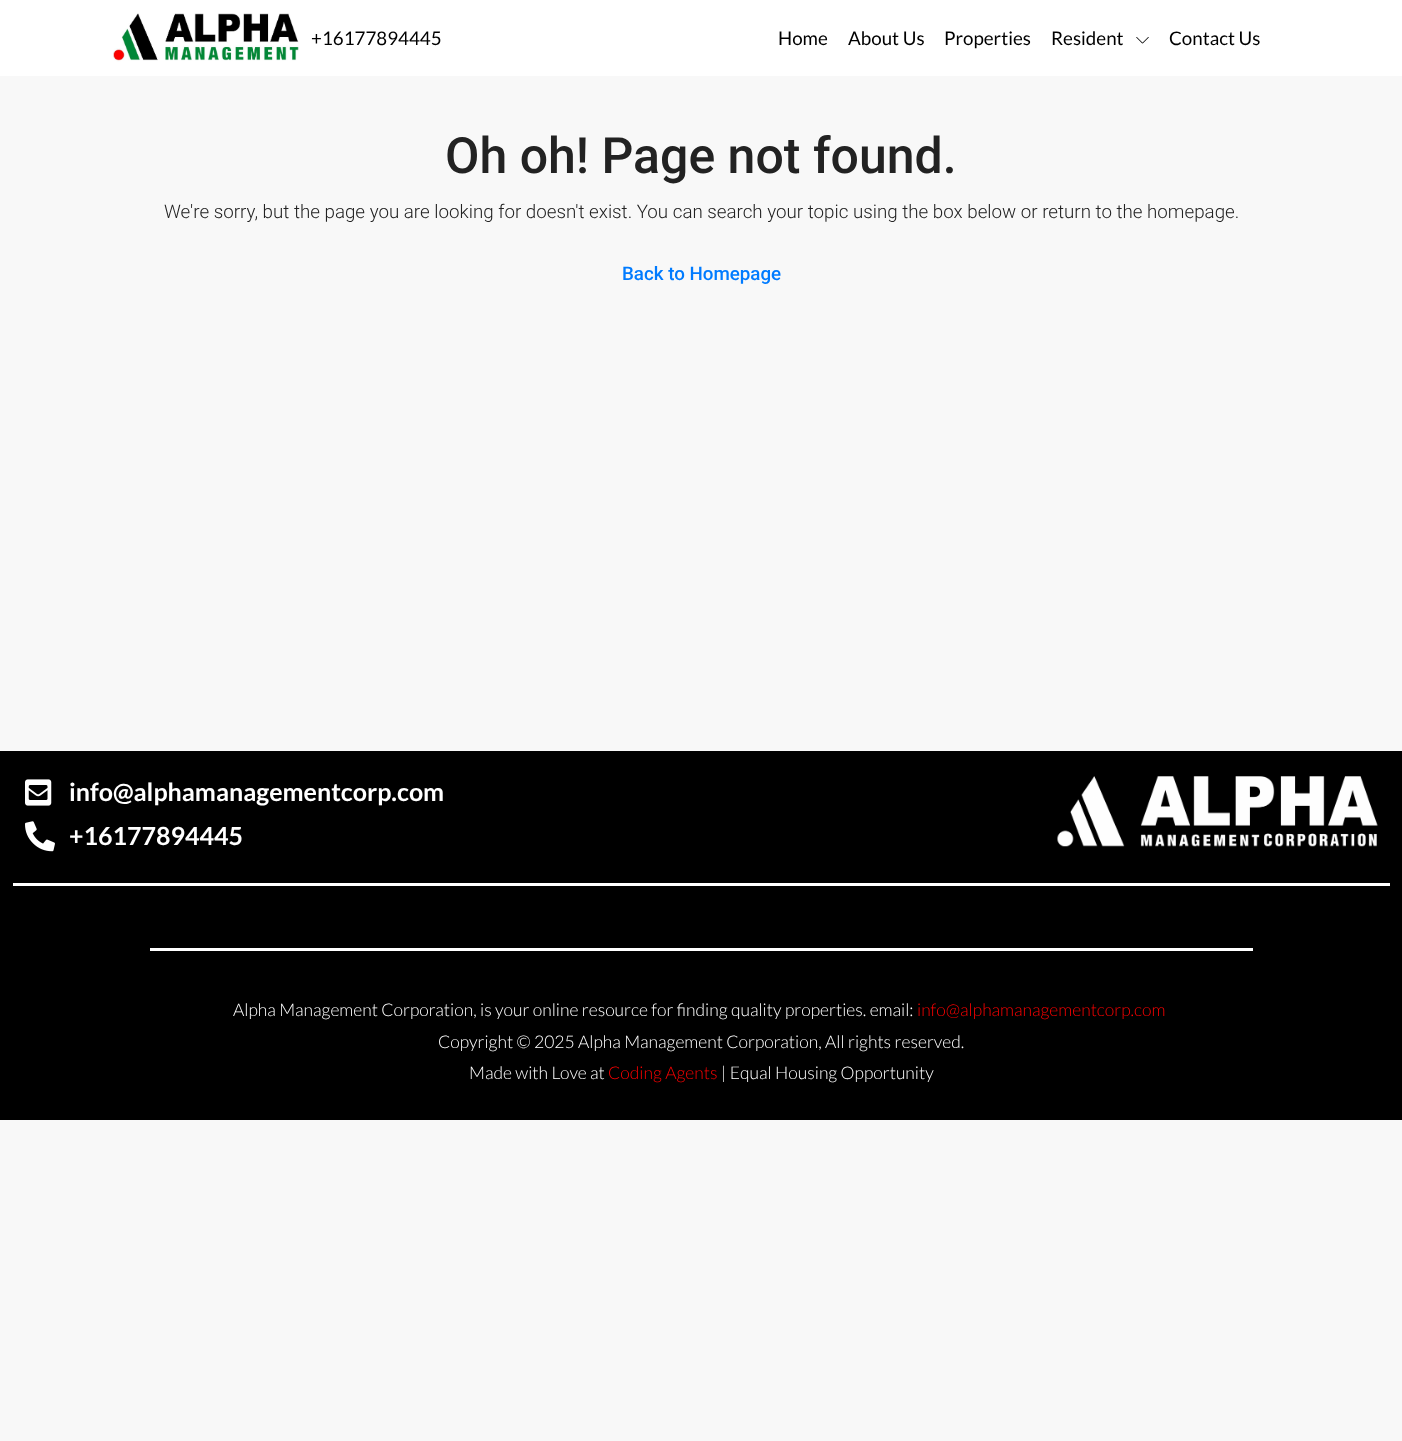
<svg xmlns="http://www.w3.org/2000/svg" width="1402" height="1441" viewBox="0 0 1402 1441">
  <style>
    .t1 { font: 18.75px Lato; fill: #000; }
    .t2 { font: 500 50px Roboto; fill: #222; }
    .t3 { font: 300 18.75px Roboto; fill: #222; }
    .t4 { font: 500 18.75px Roboto; fill: #007bff; }
    .t5 { font: bold 25px Lato; fill: #fff; }
    .t6 { font: 300 17.5px Lato; fill: #fff; }
    .t7 { font: 300 17.5px Lato; fill: #fe0000; }
  </style>
  <rect width="100%" height="100%" fill="#f8f8f8"/>
  <rect x="0" y="0" width="1402" height="76" fill="#fff"/>
  <image x="113" y="13" width="186" height="49" href="images/1.png"/>
  <text x="311" y="45" class="t1">+16177894445</text>
  <text x="778" y="45" class="t1">Home</text>
  <text x="848" y="45" class="t1">About Us</text>
  <text x="944" y="45" class="t1">Properties</text>
  <text x="1051" y="45" class="t1">Resident</text>
  <image x="1136" y="37" width="13" height="7" href="images/2.png"/>
  <text x="1169" y="45" class="t1">Contact Us</text>
  <text x="445" y="173" class="t2">Oh oh! Page not found.</text>
  <text x="164" y="218" class="t3">We're sorry, but the page you are looking for doesn't exist. You can search your topic using the box below or return to the homepage.</text>
  <text x="622" y="280" class="t4">Back to Homepage</text>
  <rect x="0" y="751" width="1402" height="369" fill="#000"/>
  <image x="25" y="779" width="27" height="27" href="images/3.png"/>
  <text x="69" y="801" class="t5">info@alphamanagementcorp.com</text>
  <image x="25" y="821" width="30" height="31" href="images/4.png"/>
  <text x="69" y="845" class="t5">+16177894445</text>
  <image x="1057" y="776" width="321" height="71" href="images/5.png"/>
  <rect x="13" y="883" width="1377" height="3" fill="#fff"/>
  <rect x="150" y="948" width="1103" height="3" fill="#fff"/>
  <text x="233" y="1016" class="t6">Alpha Management Corporation, is your online resource for finding quality properties. email:</text>
  <text x="917" y="1016" class="t7">info@alphamanagementcorp.com</text>
  <text x="438" y="1048" class="t6">Copyright © 2025 Alpha Management Corporation, All rights reserved.</text>
  <text x="469" y="1079" class="t6">Made with Love at</text>
  <text x="608" y="1079" class="t7">Coding Agents</text>
  <text x="721" y="1079" class="t6">| Equal Housing Opportunity</text>
</svg>
